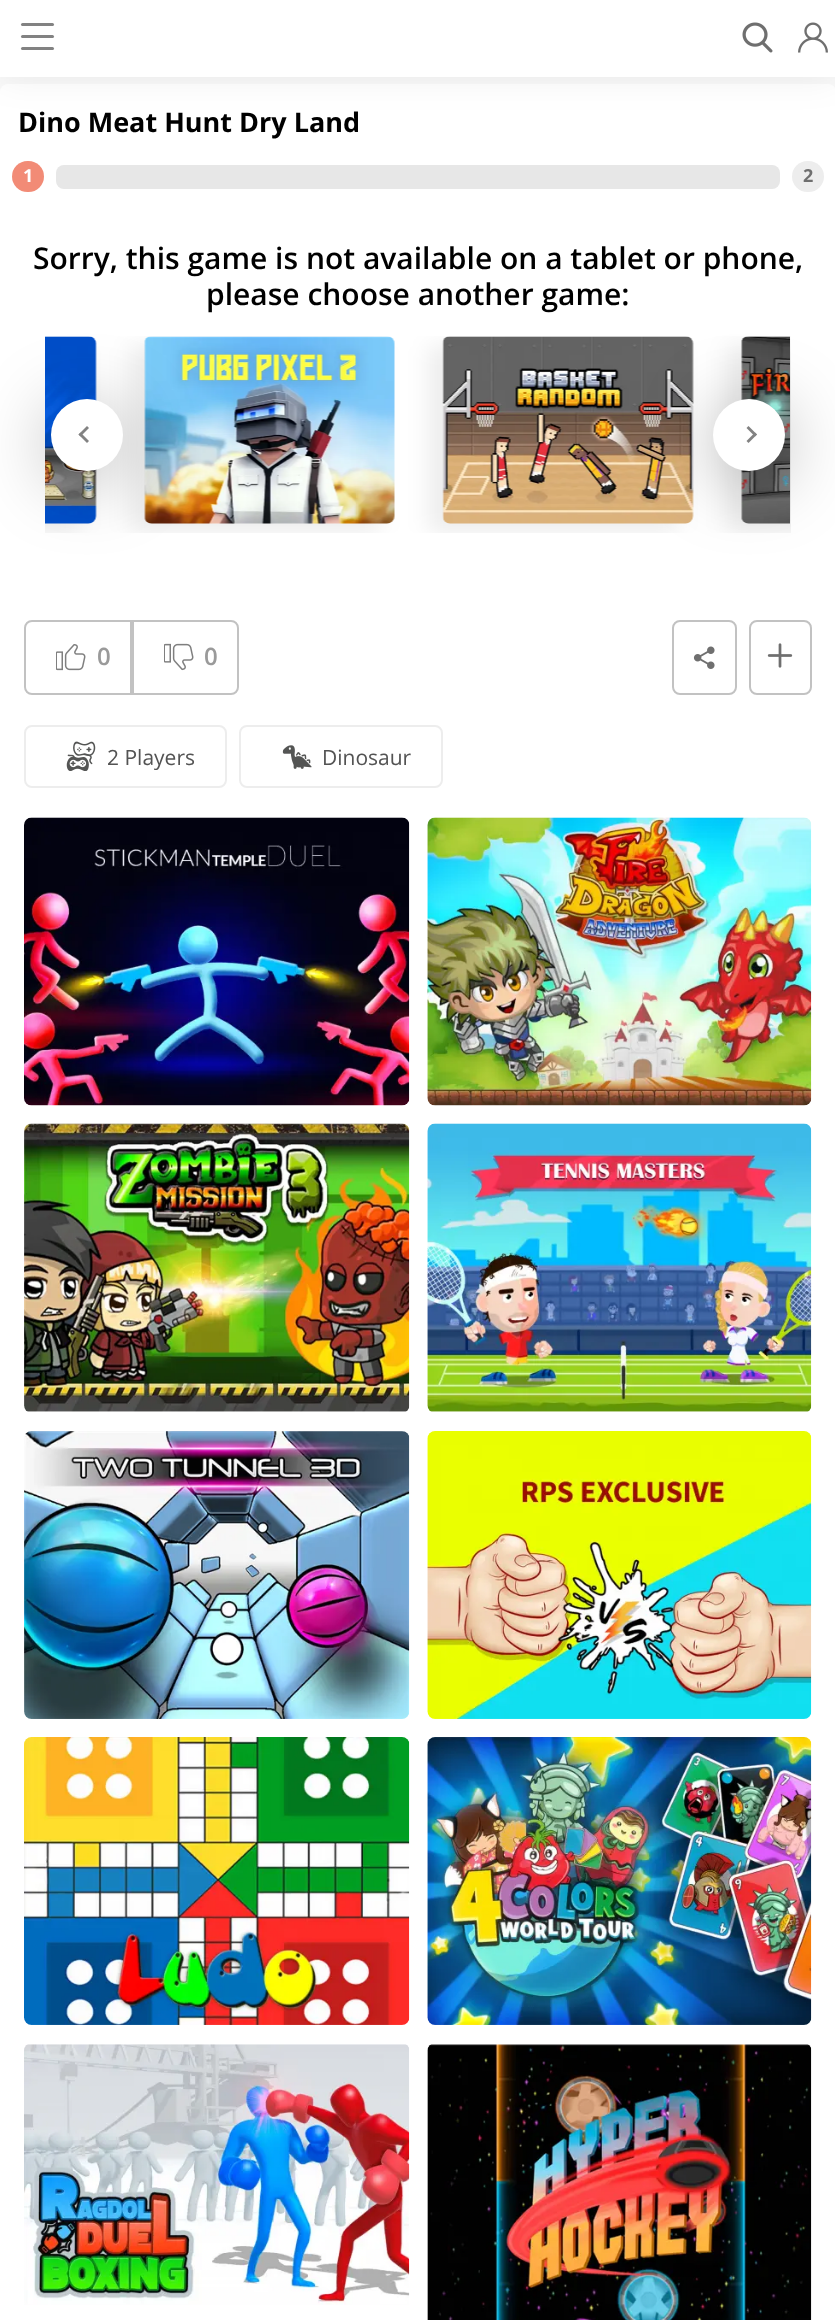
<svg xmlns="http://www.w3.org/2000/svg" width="835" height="2320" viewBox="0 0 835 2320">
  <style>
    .t1 { font: bold 27px Open Sans; fill: #000; }
    .t2 { font: bold 18px Open Sans; fill: #fff; }
    .t3 { font: bold 18px Open Sans; fill: #6f6f6f; }
    .t4 { font: 600 30px Open Sans; fill: #000; }
    .t5 { font: 600 24px Open Sans; fill: #9a9a9a; }
    .t6 { font: 21px Open Sans; fill: #535353; }
  </style>
  <defs>
    <clipPath id="clip1"><rect x="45" y="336" width="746" height="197"/></clipPath>
  </defs>
  <rect width="100%" height="100%" fill="#f9f9f9"/>
  <rect x="0" y="84" width="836" height="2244" rx="8" fill="#fff"/>
  <rect x="0" y="0" width="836" height="77" fill="#00000012" filter="blur(18px)"/>
  <rect x="0" y="0" width="835" height="77" fill="#fff"/>
  <rect x="21" y="35" width="33" height="3" rx="1.5" fill="#828282"/>
  <rect x="21" y="23" width="33" height="3" rx="1.5" fill="#828282"/>
  <rect x="21" y="47" width="33" height="3" rx="1.5" fill="#828282"/>
  <image x="742" y="22" width="31" height="31" href="images/1.png"/>
  <image x="798" y="22" width="30" height="31" href="images/2.png"/>
  <text x="18" y="132" class="t1">Dino Meat Hunt Dry Land</text>
  <rect x="12" y="161" width="32" height="31" rx="15.5" fill="#f28b76"/>
  <text x="23" y="182" class="t2">1</text>
  <rect x="56" y="165" width="724" height="24" rx="8" fill="#e7e7e7"/>
  <rect x="792" y="161" width="32" height="31" rx="15.5" fill="#ededed"/>
  <text x="803" y="182" class="t3">2</text>
  <text x="33" y="269" class="t4">Sorry, this game is not available on a tablet or phone,</text>
  <text x="206" y="305" class="t4">please choose another game:</text>
  <g clip-path="url(#clip1)">
    <rect x="-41" y="345" width="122" height="188" rx="8" fill="#00000012" filter="blur(11px)"/>
  </g>
  <image x="45" y="336" width="52" height="188" href="images/3.png"/>
  <g clip-path="url(#clip1)">
    <rect x="129" y="345" width="251" height="188" rx="8" fill="#00000012" filter="blur(11px)"/>
  </g>
  <image x="144" y="336" width="251" height="188" href="images/4.png"/>
  <rect x="51" y="408" width="72" height="72" rx="36" fill="#00000059" filter="blur(37.5px)"/>
  <circle cx="87" cy="435" r="36" fill="#fff"/>
  <path d="M89 441L87 443L78.5 434.5L80.5 432.5Z" fill="#828282"/>
  <path d="M89 428L80.5 436.5L78.5 434.5L87 426Z" fill="#828282"/>
  <g clip-path="url(#clip1)">
    <rect x="428" y="345" width="250" height="188" rx="8" fill="#00000012" filter="blur(11px)"/>
  </g>
  <image x="442" y="336" width="252" height="188" href="images/5.png"/>
  <g clip-path="url(#clip1)">
    <rect x="726" y="345" width="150" height="188" rx="8" fill="#00000012" filter="blur(11px)"/>
  </g>
  <image x="741" y="336" width="49" height="188" href="images/6.png"/>
  <rect x="713" y="408" width="72" height="72" rx="36" fill="#00000059" filter="blur(37.5px)"/>
  <circle cx="749" cy="435" r="36" fill="#fff"/>
  <path d="M746.5 428L748.5 426L757 434.5L755 436.5Z" fill="#828282"/>
  <path d="M746.5 441L755 432.5L757 434.5L748.5 443Z" fill="#828282"/>
  <path d="M32 621H131V694H32C28 694 25 691 25 687V628C25 624 28 621 32 621Z" fill="none" stroke="#c2c2c2" stroke-width="2"/>
  <image x="56" y="644" width="30" height="27" href="images/7.png"/>
  <text x="97" y="665" class="t5">0</text>
  <path d="M133 621H231C235 621 238 624 238 628V687C238 691 235 694 231 694H133Z" fill="none" stroke="#c2c2c2" stroke-width="2"/>
  <image x="164" y="643" width="30" height="28" href="images/8.png"/>
  <text x="204" y="665" class="t5">0</text>
  <rect x="673" y="621" width="63" height="73" rx="7" fill="none" stroke="#c2c2c2" stroke-width="2"/>
  <image x="693" y="646" width="22" height="23" href="images/9.png"/>
  <rect x="750" y="621" width="61" height="73" rx="7" fill="none" stroke="#c2c2c2" stroke-width="2"/>
  <image x="767" y="643" width="26" height="25" href="images/10.png"/>
  <rect x="25" y="726" width="201" height="61" rx="7" fill="none" stroke="#ededed" stroke-width="2"/>
  <image x="66" y="741" width="30" height="30" href="images/11.png"/>
  <text x="107" y="765" class="t6">2 Players</text>
  <rect x="240" y="726" width="202" height="61" rx="7" fill="none" stroke="#ededed" stroke-width="2"/>
  <image x="282" y="745" width="30" height="24" href="images/12.png"/>
  <text x="322" y="765" class="t6">Dinosaur</text>
  <image x="24" y="817" width="386" height="289" href="images/13.png"/>
  <image x="427" y="817" width="385" height="289" href="images/14.png"/>
  <image x="24" y="1123" width="386" height="289" href="images/15.png"/>
  <image x="427" y="1123" width="385" height="289" href="images/16.png"/>
  <image x="24" y="1431" width="386" height="288" href="images/17.png"/>
  <image x="427" y="1431" width="385" height="288" href="images/18.png"/>
  <image x="24" y="1737" width="386" height="288" href="images/19.png"/>
  <image x="427" y="1737" width="385" height="288" href="images/20.png"/>
  <image x="24" y="2044" width="386" height="261" href="images/21.png"/>
  <image x="427" y="2044" width="385" height="276" href="images/22.png"/>
</svg>
